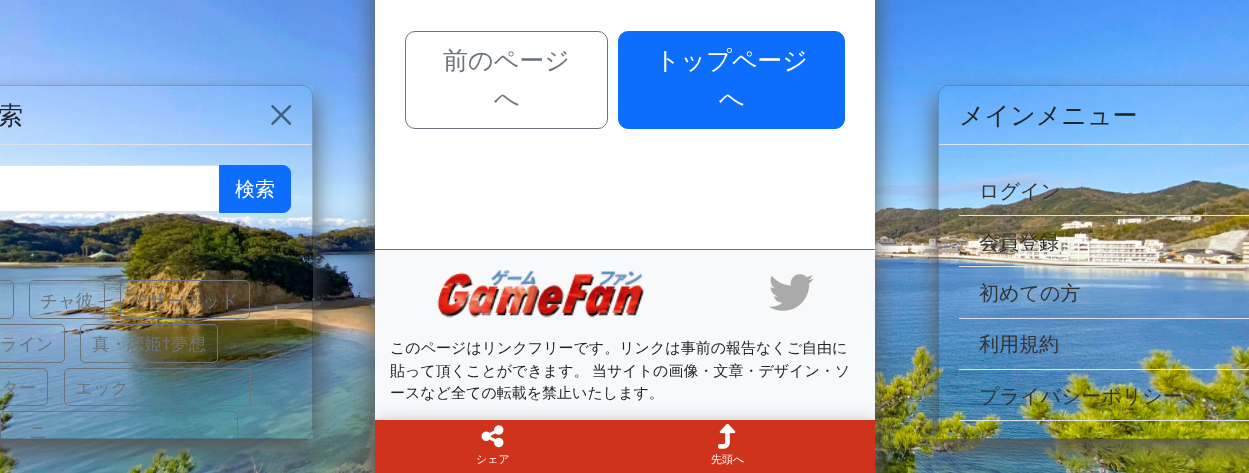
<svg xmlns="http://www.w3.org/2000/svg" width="1249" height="473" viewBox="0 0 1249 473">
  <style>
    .t1 { font: 500 25px WenQuanYi Zen Hei; fill: #6c757d; }
    .t2 { font: 500 25px WenQuanYi Zen Hei; fill: #fff; }
    .t3 { font: 500 25px WenQuanYi Zen Hei; fill: #212529; }
    .t4 { font: 500 20px WenQuanYi Zen Hei; fill: #fff; }
    .t5 { font: 500 17.5px WenQuanYi Zen Hei; fill: #6c757d; }
    .t6 { font: 17.5px Noto Sans; fill: #6c757d; }
    .t7 { font: 500 15px WenQuanYi Zen Hei; fill: #212529; }
    .t8 { font: 500 20px WenQuanYi Zen Hei; fill: #333; }
    .t9 { font: 500 11px WenQuanYi Zen Hei; fill: #fff; }
  </style>
  <defs>
    <clipPath id="clip1"><path d="M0 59H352V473H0ZM-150 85H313V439H-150Z" clip-rule="evenodd"/></clipPath>
    <clipPath id="clip2"><path d="M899 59H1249V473H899ZM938 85H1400V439H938Z" clip-rule="evenodd"/></clipPath>
  </defs>
  <rect width="100%" height="100%" fill="#fff"/>
  <image x="0" y="0" width="1249" height="473" href="images/1.png"/>
  <rect x="375" y="-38" width="500" height="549" fill="#555" filter="blur(12.5px)"/>
  <rect x="375" y="0" width="500" height="249" fill="#fff"/>
  <rect x="405.5" y="31.5" width="202" height="97" rx="9.5" fill="none" stroke="#6c757d"/>
  <text x="443" y="69" class="t1">前のページ</text>
  <text x="494" y="107" class="t1">へ</text>
  <rect x="618.5" y="31.5" width="226" height="97" rx="9.5" fill="#0d6efd" stroke="#0d6efd"/>
  <text x="655" y="69" class="t2">トップページ</text>
  <text x="719" y="107" class="t2">へ</text>
  <g clip-path="url(#clip1)">
    <rect x="-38" y="98" width="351" height="353" fill="#555" filter="blur(12.5px)"/>
  </g>
  <rect x="-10.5" y="85.5" width="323" height="353" rx="9.5" fill="none" stroke="#0000002e"/>
  <rect x="0" y="144" width="311" height="1" fill="#dee2e6"/>
  <text x="-2" y="124" class="t3">索</text>
  <image x="271" y="105" width="20" height="20" href="images/2.png"/>
  <rect x="0" y="166" width="219" height="45" fill="#fff"/>
  <rect x="-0.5" y="165.5" width="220" height="47" fill="none" stroke="#dee2e6"/>
  <path d="M219.5 165.5H283C287 165.5 290.5 169 290.5 173V205C290.5 209 287 212.5 283 212.5H219.5Z" fill="#0d6efd" stroke="#0d6efd"/>
  <text x="235" y="196" class="t4">検索</text>
  <rect x="-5.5" y="280.5" width="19" height="38" rx="4.5" fill="none" stroke="#6c757d"/>
  <rect x="29.5" y="280.5" width="75" height="38" rx="4.5" fill="none" stroke="#6c757d"/>
  <text x="40" y="307" class="t5">チャ彼</text>
  <rect x="120.5" y="280.5" width="129" height="38" rx="4.5" fill="none" stroke="#6c757d"/>
  <text x="131" y="307" class="t5">デザーテッド</text>
  <rect x="-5.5" y="324.5" width="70" height="38" rx="4.5" fill="none" stroke="#6c757d"/>
  <text x="0" y="350" class="t5">ライン</text>
  <rect x="80.5" y="324.5" width="137" height="38" rx="4.5" fill="none" stroke="#6c757d"/>
  <text x="92" y="350" class="t5">真・恋姫</text>
  <text x="162" y="350" class="t6">†</text>
  <text x="171" y="350" class="t5">夢想</text>
  <rect x="-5.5" y="368.5" width="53" height="37" rx="4.5" fill="none" stroke="#6c757d"/>
  <text x="1" y="394" class="t5">ター</text>
  <rect x="64.5" y="368.5" width="186" height="37" rx="4.5" fill="none" stroke="#6c757d"/>
  <text x="75" y="394" word-spacing="-1" class="t5">エック</text>
  <path d="M5 411C2 411 0 413 0 416V438H1V416C1 414 3 412 5 412H233C235 412 237 414 237 416V438H238V416C238 413 236 411 233 411Z" fill="#6c757d"/>
  <text x="29" y="438" class="t5">ニ</text>
  <rect x="375" y="250" width="500" height="169" fill="#f8f9fa"/>
  <rect x="375" y="249" width="500" height="1" fill="#6c757d"/>
  <image x="437" y="270" width="208" height="48" href="images/3.png"/>
  <image x="769" y="274" width="45" height="37" href="images/4.png"/>
  <text x="390" y="353" class="t7">このページはリンクフリーです。リンクは事前の報告なくご自由に</text>
  <text x="390" y="376" class="t7">貼って頂くことができます。</text>
  <text x="592" y="376" class="t7">当サイトの画像・文章・デザイン・ソ</text>
  <text x="390" y="398" class="t7">ースなど全ての転載を禁止いたします。</text>
  <g clip-path="url(#clip2)">
    <rect x="938" y="98" width="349" height="353" fill="#555" filter="blur(12.5px)"/>
  </g>
  <rect x="938.5" y="85.5" width="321" height="353" rx="9.5" fill="none" stroke="#0000002e"/>
  <rect x="939" y="144" width="310" height="1" fill="#dee2e6"/>
  <text x="959" y="124" class="t3">メインメニュー</text>
  <rect x="959" y="215" width="290" height="1" fill="#dee2e6"/>
  <text x="979" y="198" class="t8">ログイン</text>
  <rect x="959" y="266" width="290" height="1" fill="#dee2e6"/>
  <text x="979" y="249" class="t8">会員登録</text>
  <rect x="959" y="318" width="290" height="1" fill="#dee2e6"/>
  <text x="979" y="300" class="t8">初めての方</text>
  <rect x="959" y="369" width="290" height="1" fill="#dee2e6"/>
  <text x="979" y="351" class="t8">利用規約</text>
  <rect x="959" y="420" width="290" height="1" fill="#dee2e6"/>
  <text x="979" y="403" class="t8">プライバシーポリシー</text>
  <rect x="375" y="431" width="500" height="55" fill="#555" filter="blur(12.5px)"/>
  <rect x="375" y="420" width="500" height="53" fill="#d0331c"/>
  <rect x="375" y="419" width="500" height="1" fill="#dee2e6"/>
  <image x="481" y="425" width="23" height="23" href="images/5.png"/>
  <text x="476" y="463" class="t9">シェア</text>
  <image x="718" y="424" width="18" height="25" href="images/6.png"/>
  <text x="711" y="463" class="t9">先頭へ</text>
</svg>
